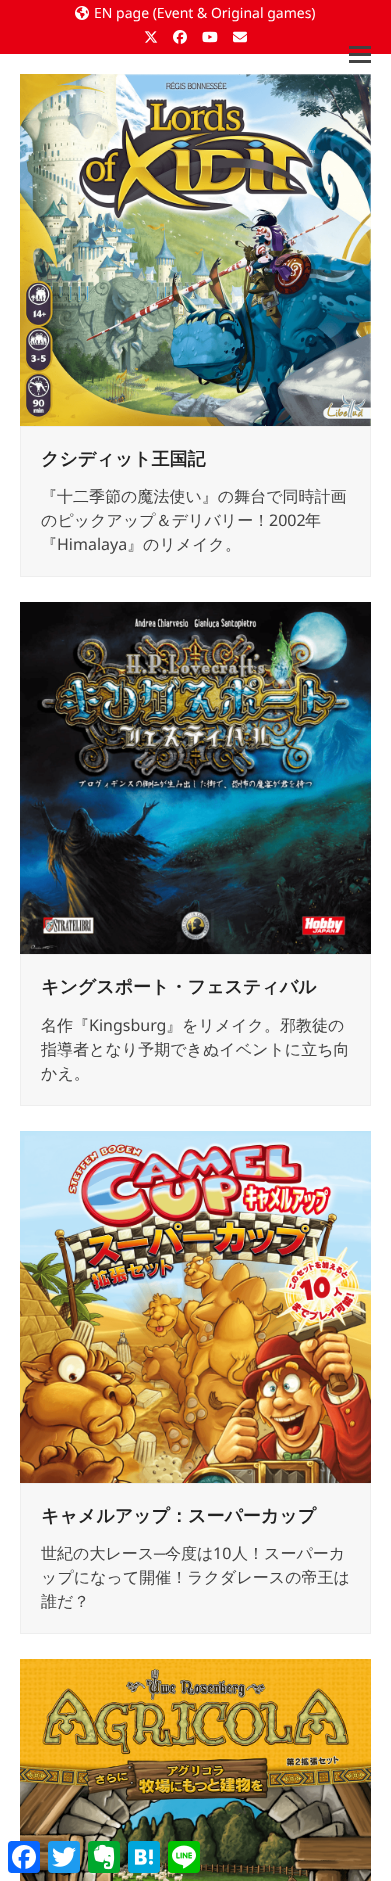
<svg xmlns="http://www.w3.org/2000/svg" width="391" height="1881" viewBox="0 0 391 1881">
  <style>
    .t1 { font: 14px Noto Sans; fill: #fff; }
    .t2 { font: bold 18px WenQuanYi Zen Hei; fill: #222; }
    .t3 { font: 500 16px WenQuanYi Zen Hei; fill: #424242; }
    .t4 { font: 16px Noto Sans; fill: #424242; }
    .t5 { font: 16px Liberation Sans; fill: #424242; }
  </style>
  <rect width="100%" height="100%" fill="#fff"/>
  <rect x="0" y="0" width="391" height="54" fill="#e60012"/>
  <image x="75" y="6" width="14" height="14" href="images/1.png"/>
  <text x="94" y="18" class="t1">EN page (Event &amp; Original games)</text>
  <image x="144" y="31" width="14" height="12" href="images/2.png"/>
  <image x="173" y="30" width="14" height="14" href="images/3.png"/>
  <image x="202" y="31" width="16" height="12" href="images/4.png"/>
  <image x="233" y="31" width="14" height="12" href="images/5.png"/>
  <rect x="349" y="53" width="22" height="3" fill="#424242"/>
  <rect x="349" y="46" width="22" height="3" fill="#424242"/>
  <rect x="349" y="60" width="22" height="3" fill="#424242"/>
  <image x="20" y="74" width="351" height="352" href="images/6.png"/>
  <rect x="20.5" y="426.5" width="350" height="150" fill="#f7f7f7" stroke="#eee"/>
  <text x="41" y="465" class="t2">クシディット王国記</text>
  <text x="41" y="502" class="t3">『十二季節の魔法使い』の舞台で同時計画</text>
  <text x="41" y="526" class="t3">のピックアップ＆デリバリー！</text>
  <text x="269" y="526" class="t4">2002</text>
  <text x="305" y="526" class="t3">年</text>
  <text x="41" y="550" class="t3">『</text>
  <text x="57" y="550" class="t4">Himalaya</text>
  <text x="127" y="550" class="t3">』のリメイク。</text>
  <image x="20" y="602" width="351" height="352" href="images/7.png"/>
  <rect x="20.5" y="954.5" width="350" height="151" fill="#f7f7f7" stroke="#eee"/>
  <text x="41" y="993" class="t2">キングスポート・フェスティバル</text>
  <text x="41" y="1031" class="t3">名作『</text>
  <text x="89" y="1031" class="t4">Kingsburg</text>
  <text x="166" y="1031" class="t3">』をリメイク。邪教徒の</text>
  <text x="41" y="1055" class="t3">指導者となり予期できぬイベントに立ち向</text>
  <text x="41" y="1079" class="t3">かえ。</text>
  <image x="20" y="1131" width="351" height="352" href="images/8.png"/>
  <rect x="20.5" y="1483.5" width="350" height="150" fill="#f7f7f7" stroke="#eee"/>
  <text x="41" y="1522" class="t2">キャメルアップ：スーパーカップ</text>
  <text x="41" y="1559" class="t3">世紀の大レース</text>
  <text x="154" y="1559" class="t5">─</text>
  <text x="165" y="1559" class="t3">今度は</text>
  <text x="213" y="1559" class="t4">10</text>
  <text x="232" y="1559" class="t3">人！スーパーカ</text>
  <text x="41" y="1583" class="t3">ップになって開催！ラクダレースの帝王は</text>
  <text x="41" y="1607" class="t3">誰だ？</text>
  <image x="20" y="1659" width="351" height="222" href="images/9.png"/>
  <rect x="8" y="1841" width="32" height="32" rx="4" fill="#0866ff"/>
  <image x="12" y="1845" width="24" height="24" href="images/10.png"/>
  <rect x="48" y="1841" width="32" height="32" rx="4" fill="#1d9bf0"/>
  <image x="52" y="1847" width="24" height="20" href="images/11.png"/>
  <rect x="88" y="1841" width="32" height="32" rx="4" fill="#00a82d"/>
  <image x="93" y="1844" width="22" height="26" href="images/12.png"/>
  <rect x="128" y="1841" width="32" height="32" rx="4" fill="#00a6db"/>
  <image x="134" y="1849" width="19" height="16" href="images/13.png"/>
  <rect x="168" y="1841" width="32" height="32" rx="4" fill="#00c300"/>
  <image x="172" y="1845" width="24" height="24" href="images/14.png"/>
</svg>
